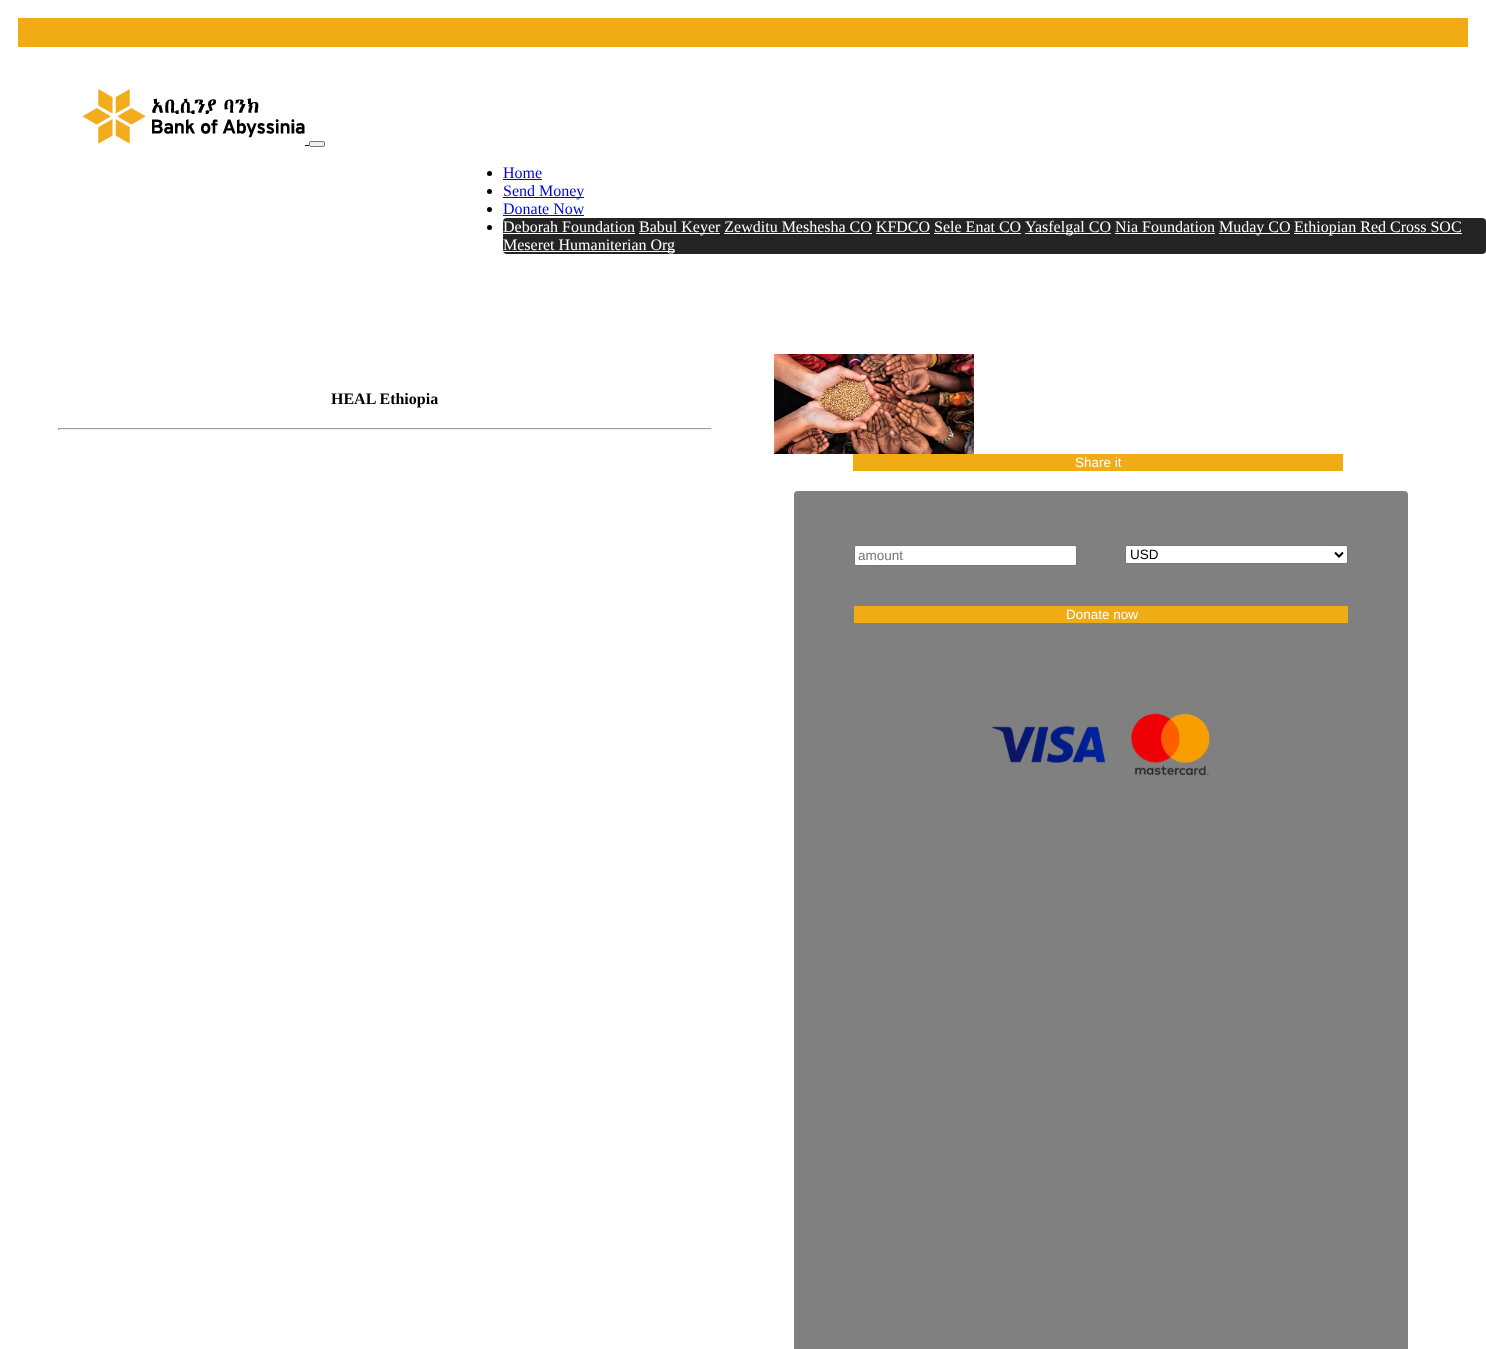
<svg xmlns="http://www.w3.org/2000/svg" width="1486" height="1349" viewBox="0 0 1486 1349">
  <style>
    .t1 { font: 16px Liberation Serif; fill: #00e; }
    .t2 { font: 16px Liberation Serif; fill: #fff; }
    .t3 { font: bold 16px Liberation Serif; fill: #000; }
    .t4 { font: 13.5px Liberation Sans; fill: #fff; }
    .t5 { font: 13.5px Liberation Sans; fill: #757575; }
    .t6 { font: 13.5px Liberation Sans; fill: #000; }
  </style>
  <rect width="100%" height="100%" fill="#fff"/>
  <rect x="18" y="18" width="1450" height="29" fill="#f1ab15"/>
  <image x="82" y="89" width="223" height="55" href="images/1.png"/>
  <rect x="305" y="145" width="4" height="1" fill="#00e"/>
  <rect x="309.5" y="141.5" width="15" height="5" rx="1.5" fill="#efefef" stroke="#767676"/>
  <circle cx="489.5" cy="173.5" r="2.5" fill="#000"/>
  <text x="503" y="178" class="t1">Home</text>
  <rect x="503" y="179" width="39" height="1" fill="#00e"/>
  <circle cx="489.5" cy="191.5" r="2.5" fill="#000"/>
  <rect x="503" y="197" width="81" height="1" fill="#00e"/>
  <text x="503" y="196" class="t1">Send Money</text>
  <circle cx="489.5" cy="227.5" r="2.5" fill="#000"/>
  <circle cx="489.5" cy="209.5" r="2.5" fill="#000"/>
  <text x="503" y="214" class="t1">Donate Now</text>
  <rect x="503" y="215" width="81" height="1" fill="#00e"/>
  <rect x="503" y="218" width="983" height="36" rx="4" fill="#252424"/>
  <text x="503" y="232" class="t2">Deborah Foundation</text>
  <rect x="503" y="233" width="132" height="1" fill="#fff"/>
  <rect x="639" y="233" width="81" height="1" fill="#fff"/>
  <text x="639" y="232" class="t2">Babul Keyer Zewditu Meshesha CO KFDCO Sele Enat CO</text>
  <rect x="1025" y="233" width="86" height="1" fill="#fff"/>
  <text x="1025" y="232" class="t2">Yasfelgal CO Nia Foundation</text>
  <rect x="1219" y="233" width="71" height="1" fill="#fff"/>
  <text x="1219" y="232" class="t2">Muday CO</text>
  <rect x="1294" y="233" width="168" height="1" fill="#fff"/>
  <text x="1294" y="232" class="t2">Ethiopian Red Cross SOC</text>
  <rect x="724" y="233" width="148" height="1" fill="#fff"/>
  <rect x="876" y="233" width="54" height="1" fill="#fff"/>
  <rect x="934" y="233" width="87" height="1" fill="#fff"/>
  <rect x="1115" y="233" width="100" height="1" fill="#fff"/>
  <rect x="503" y="251" width="172" height="1" fill="#fff"/>
  <text x="503" y="250" class="t2">Meseret Humaniterian Org</text>
  <text x="331" y="404" class="t3">HEAL Ethiopia</text>
  <rect x="58" y="428" width="654" height="1" fill="#9f9f9f"/>
  <rect x="711" y="428" width="1" height="2" fill="#eee"/>
  <rect x="58" y="429" width="654" height="1" fill="#eee"/>
  <rect x="58" y="428" width="1" height="2" fill="#9f9f9f"/>
  <image x="774" y="354" width="200" height="100" href="images/2.png"/>
  <rect x="853" y="454" width="490" height="17" fill="#f1ab15"/>
  <text x="1075" y="467" class="t4">Share it</text>
  <rect x="794" y="491" width="614" height="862" rx="4" fill="#808080"/>
  <rect x="854.5" y="545.5" width="222" height="20" rx="1.5" fill="#fff" stroke="#767676"/>
  <text x="858" y="560" class="t5">amount</text>
  <rect x="1125.5" y="545.5" width="222" height="18" rx="1.5" fill="#fff" stroke="#767676"/>
  <path d="M1335 552.5L1339 556.5L1343 552.5" fill="none" stroke="#000" stroke-width="2"/>
  <text x="1130" y="559" class="t6">USD</text>
  <rect x="854" y="606" width="494" height="17" fill="#f1ab15"/>
  <text x="1066" y="619" class="t4">Donate now</text>
  <image x="992" y="713" width="218" height="63" href="images/3.png"/>
</svg>
